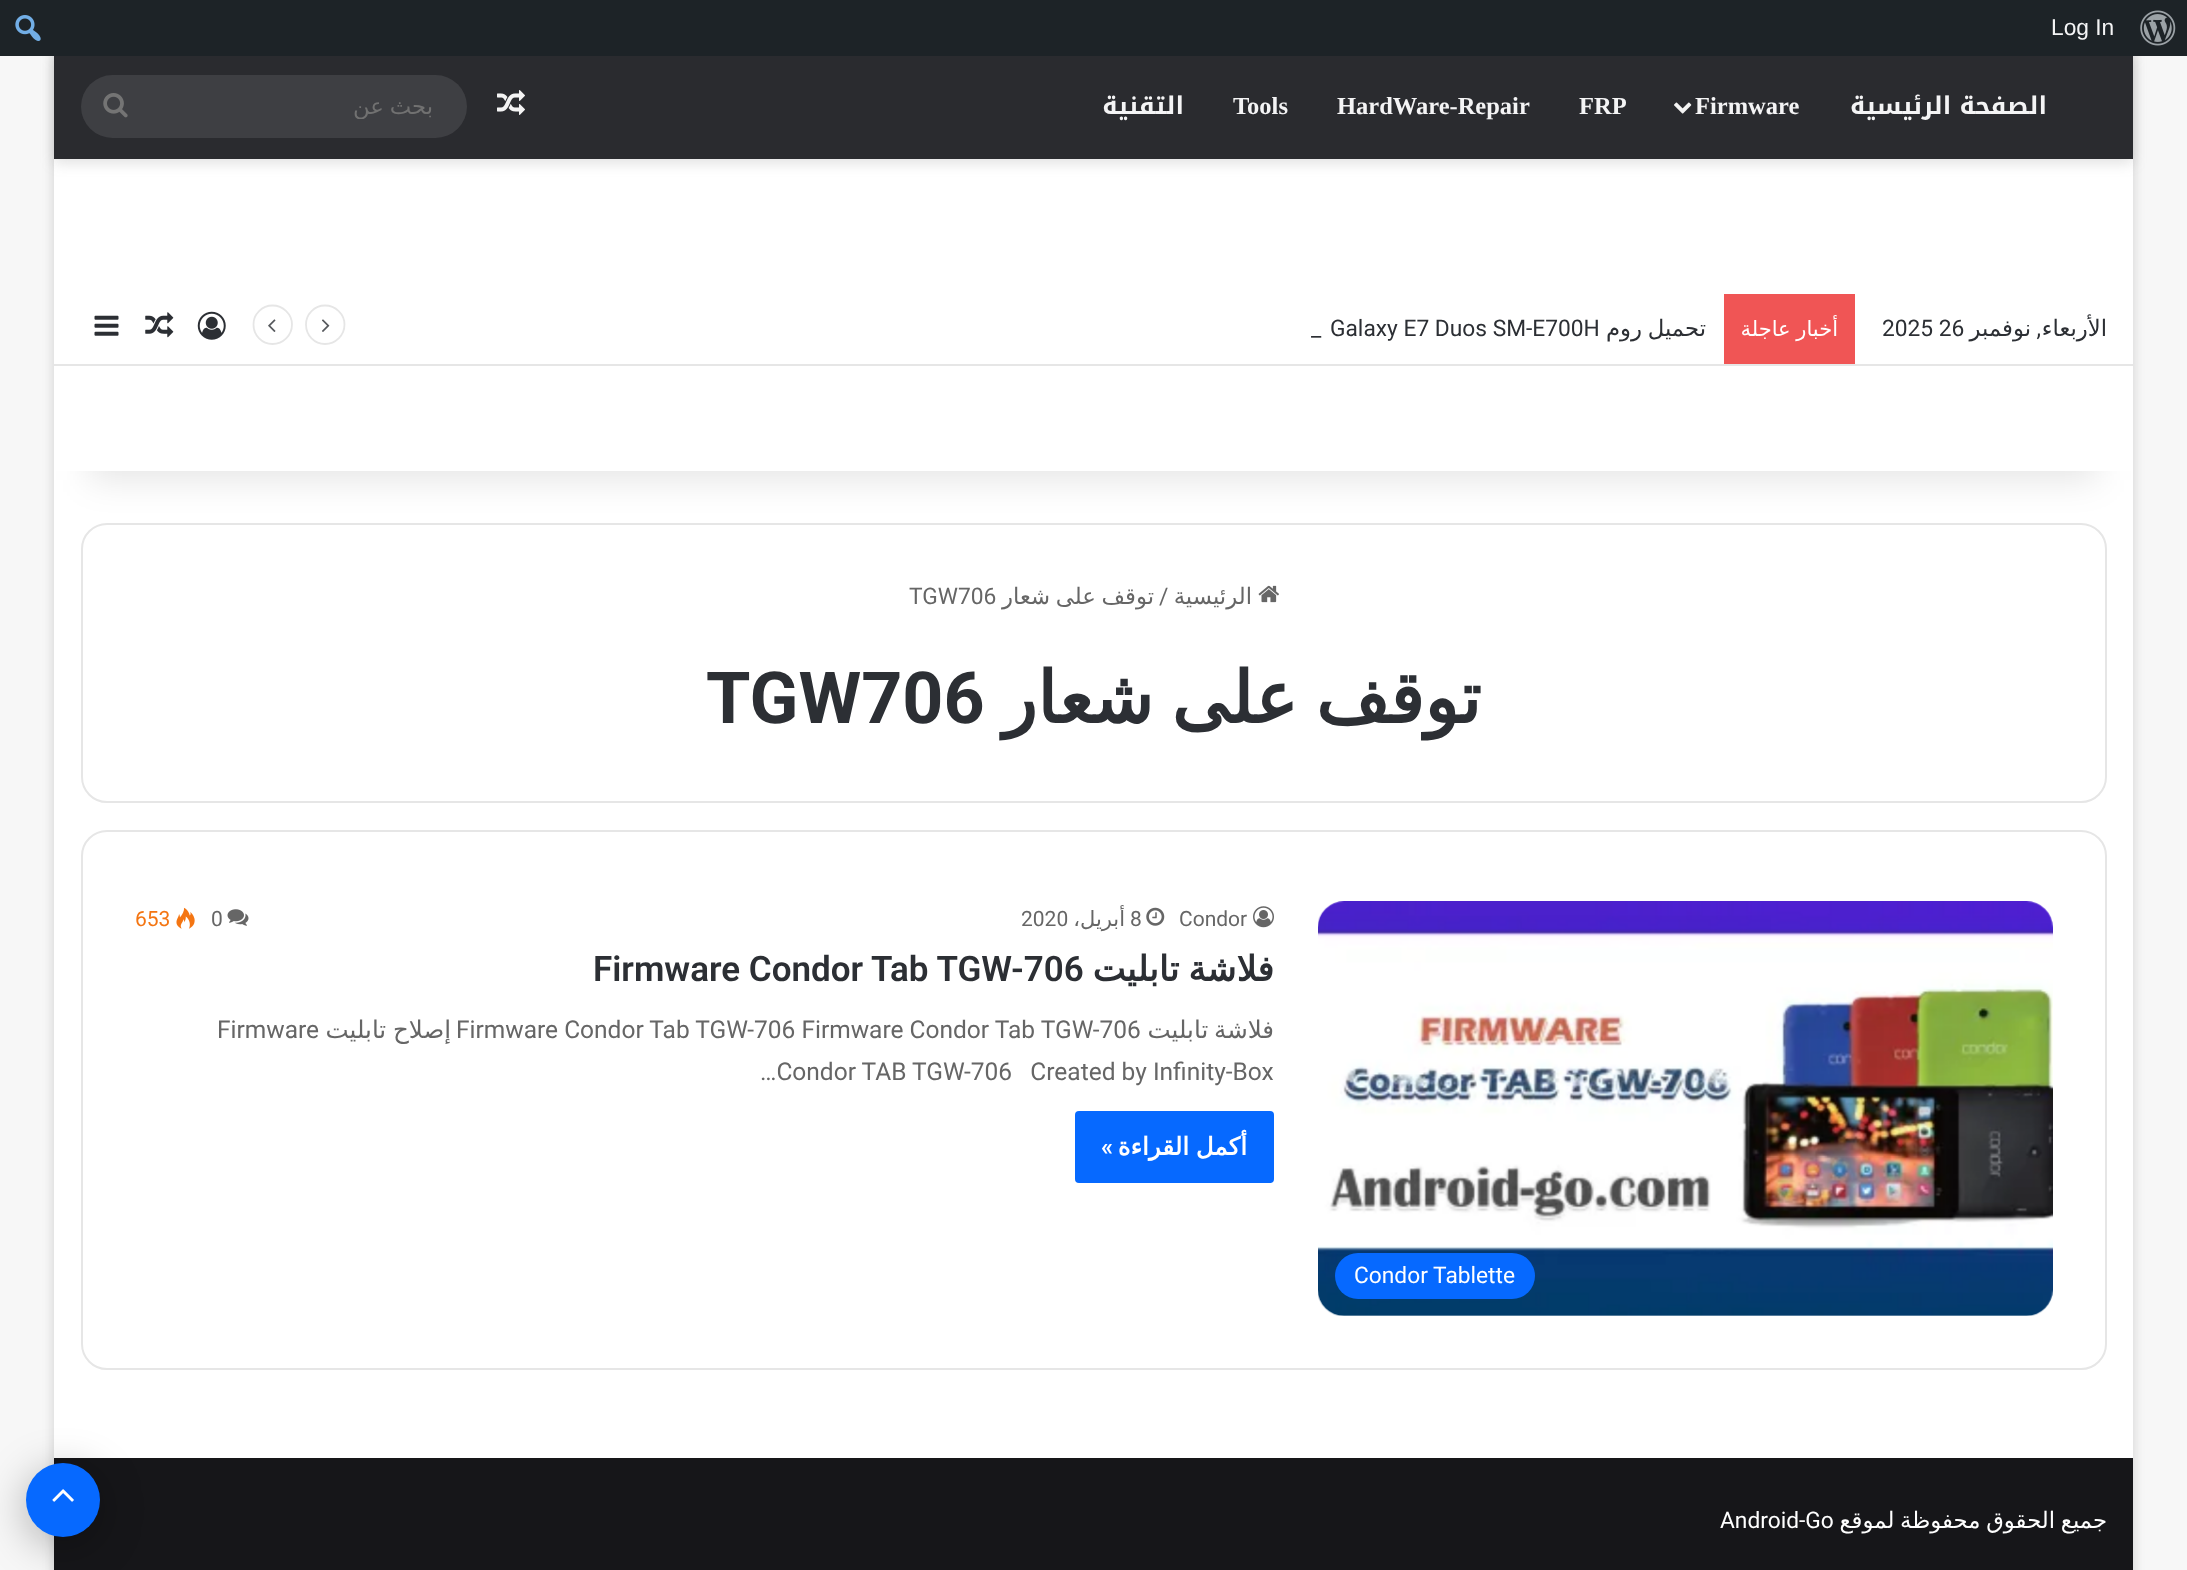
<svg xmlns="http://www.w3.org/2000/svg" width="2187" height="1570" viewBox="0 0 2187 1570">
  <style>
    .t1 { font: 22.75px Liberation Sans; fill: #f4f4f5; }
    .t2 { font: 22.75px DejaVu Sans; direction: rtl; fill: #717171; }
    .t3 { font: bold 24.5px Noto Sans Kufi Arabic; direction: rtl; fill: #f4f4f5; }
    .t4 { font: bold 24.5px Liberation Serif; fill: #f4f4f5; }
    .t5 { font: 22.75px Roboto; fill: #2c2f34; }
    .t6 { font: 22.75px DejaVu Sans; direction: rtl; fill: #2c2f34; }
    .t7 { font: 21px DejaVu Sans; direction: rtl; fill: #fff; }
    .t8 { font: 22.75px Roboto; direction: rtl; fill: #2c2f34; }
    .t9 { font: 22.75px Roboto; fill: #666; }
    .t10 { font: 22.75px DejaVu Sans; direction: rtl; fill: #666; }
    .t11 { font: bold 71.75px Roboto; fill: #2c2f34; }
    .t12 { font: bold 71.75px DejaVu Sans; direction: rtl; fill: #2c2f34; }
    .t13 { font: 21px Roboto; fill: #f47512; }
    .t14 { font: 21px Roboto; fill: #666; }
    .t15 { font: 21px DejaVu Sans; direction: rtl; fill: #666; }
    .t16 { font: 600 35px Roboto; fill: #2c2f34; }
    .t17 { font: bold 35px DejaVu Sans; direction: rtl; fill: #2c2f34; }
    .t18 { font: 24.5px Roboto; fill: #666; }
    .t19 { font: 24.5px DejaVu Sans; direction: rtl; fill: #666; }
    .t20 { font: 600 24.5px Roboto; direction: rtl; fill: #fff; }
    .t21 { font: bold 24.5px DejaVu Sans; direction: rtl; fill: #fff; }
    .t22 { font: 22.75px Roboto; fill: #fff; }
    .t23 { font: 22.75px DejaVu Sans; direction: rtl; fill: #fff; }
  </style>
  <defs>
    <clipPath id="clip1"><path d="M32 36H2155V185H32ZM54 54H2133V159H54Z" clip-rule="evenodd"/></clipPath>
    <clipPath id="clip2"><rect x="142" y="93" width="290" height="26"/></clipPath>
    <clipPath id="clip3"><rect x="1055" y="294" width="651" height="70"/></clipPath>
  </defs>
  <rect width="100%" height="100%" fill="#f7f7f7"/>
  <rect x="54" y="-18" width="2079" height="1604" fill="#ababab80" filter="blur(6px)"/>
  <rect x="54" y="471" width="2079" height="987" fill="#fff"/>
  <rect x="82" y="524" width="2024" height="278" rx="25" fill="none" stroke="#e6e6e6" stroke-width="2"/>
  <rect x="89" y="-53" width="2009" height="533" fill="#0000001a" filter="blur(17.5px)"/>
  <rect x="54" y="56" width="2079" height="415" fill="#fff"/>
  <g clip-path="url(#clip1)">
    <rect x="54" y="58" width="2079" height="105" fill="#63636333" filter="blur(7px)"/>
  </g>
  <rect x="0" y="0" width="2187" height="56" fill="#1d2327"/>
  <image x="15" y="15" width="26" height="26" href="images/1.png"/>
  <text x="2051" y="35" class="t1">Log In</text>
  <image x="2140" y="10" width="36" height="36" href="images/2.png"/>
  <rect x="54" y="56" width="2079" height="103" fill="#1f2024f2"/>
  <rect x="81" y="75" width="386" height="63" rx="31.5" fill="#3e3f43"/>
  <image x="103" y="93" width="25" height="25" href="images/3.png"/>
  <g clip-path="url(#clip2)">
    <text x="433" y="114" word-spacing="-1.5" class="t2">بحث عن</text>
  </g>
  <image x="497" y="90" width="28" height="25" href="images/4.png"/>
  <text x="1184" y="114" class="t3">التقنية</text>
  <text x="1233" y="114" class="t4">Tools</text>
  <text x="1337" y="114" class="t4">HardWare-Repair</text>
  <text x="1579" y="114" class="t4">FRP</text>
  <image x="1674" y="102" width="18" height="12" href="images/5.png"/>
  <text x="1695" y="114" class="t4">Firmware</text>
  <text x="2047" y="114" class="t3">الصفحة الرئيسية</text>
  <rect x="54" y="364" width="2079" height="2" fill="#e6e6e6"/>
  <image x="94" y="315" width="25" height="21" href="images/6.png"/>
  <image x="145" y="312" width="29" height="26" href="images/7.png"/>
  <image x="197" y="311" width="29" height="29" href="images/8.png"/>
  <path d="M272.5 344C262 344 253.5 335.5 253.5 324.5C253.5 314 262 305.5 272.5 305.5C283 305.5 292 314 292 324.5C292 335.5 283 344 272.5 344Z" fill="none" stroke="#e6e6e6" stroke-width="1.8"/>
  <image x="268" y="319" width="8" height="13" href="images/9.png"/>
  <path d="M325 344C314.5 344 306 335.5 306 324.5C306 314 314.5 305.5 325 305.5C335.5 305.5 344.5 314 344.5 324.5C344.5 335.5 335.5 344 325 344Z" fill="none" stroke="#e6e6e6" stroke-width="1.8"/>
  <image x="322" y="319" width="8" height="13" href="images/10.png"/>
  <text x="1311" y="336" class="t5">_</text>
  <text x="1330" y="336" class="t5">Galaxy E7 Duos SM-E700H</text>
  <g clip-path="url(#clip3)">
    <text x="1706" y="336" word-spacing="-1.5" class="t6">تحميل روم</text>
  </g>
  <rect x="1724" y="294" width="131" height="70" fill="#f05555"/>
  <text x="1838" y="336" word-spacing="-1" class="t7">أخبار عاجلة</text>
  <text x="1882" y="336" class="t5">2025 26</text>
  <text x="2031" y="336" class="t6">نوفمبر</text>
  <text x="2041" y="336" class="t8">,</text>
  <text x="2107" y="336" class="t6">الأربعاء</text>
  <text x="909" y="604" class="t9">TGW706</text>
  <text x="1154" y="604" word-spacing="-1.5" class="t10">توقف على شعار</text>
  <text x="1159" y="604" class="t9">/</text>
  <text x="1252" y="604" class="t10">الرئيسية</text>
  <image x="1258" y="585" width="21" height="18" href="images/11.png"/>
  <text x="706" y="723" class="t11">TGW706</text>
  <text x="1481" y="723" word-spacing="-5" class="t12">توقف على شعار</text>
  <rect x="82" y="831" width="2024" height="538" rx="25" fill="none" stroke="#e6e6e6" stroke-width="2"/>
  <text x="135" y="926" class="t13">653</text>
  <image x="176" y="907" width="19" height="22" href="images/12.png"/>
  <text x="211" y="926" class="t14">0</text>
  <image x="227" y="909" width="22" height="17" href="images/13.png"/>
  <text x="1021" y="926" class="t14">2020</text>
  <text x="1125" y="926" class="t15">أبريل،</text>
  <text x="1130" y="926" class="t14">8</text>
  <image x="1146" y="907" width="19" height="19" href="images/14.png"/>
  <text x="1179" y="926" class="t14">Condor</text>
  <image x="1253" y="906" width="21" height="22" href="images/15.png"/>
  <text x="593" y="981" class="t16">Firmware Condor Tab TGW-706</text>
  <text x="1274" y="981" word-spacing="-2" class="t17">فلاشة تابليت</text>
  <text x="217" y="1038" class="t18">Firmware</text>
  <text x="451" y="1038" word-spacing="-1" class="t19">إصلاح تابليت</text>
  <text x="456" y="1038" class="t18">Firmware Condor Tab TGW-706 Firmware Condor Tab TGW-706</text>
  <text x="1274" y="1038" word-spacing="-2" class="t19">فلاشة تابليت</text>
  <text x="760" y="1080" class="t18" xml:space="preserve">…Condor TAB TGW-706   Created by Infinity-Box</text>
  <rect x="1075" y="1111" width="199" height="72" rx="4" fill="#0669ff"/>
  <text x="1113" y="1155" class="t20">»</text>
  <text x="1247" y="1155" word-spacing="-1" class="t21">أكمل القراءة</text>
  <image x="1318" y="901" width="735" height="415" href="images/16.png"/>
  <rect x="1335" y="1253" width="200" height="46" rx="23" fill="#0669ff"/>
  <text x="1354" y="1283" class="t22">Condor Tablette</text>
  <rect x="54" y="1458" width="2079" height="112" fill="#161619"/>
  <rect x="26" y="1472" width="74" height="73" rx="36.5" fill="#0000004d" filter="blur(22px)"/>
  <circle cx="63" cy="1500" r="37" fill="#0669ff"/>
  <image x="52" y="1489" width="22" height="13" href="images/17.png"/>
  <text x="1720" y="1528" class="t22">Android-Go</text>
  <text x="2107" y="1528" word-spacing="-1.5" class="t23">جميع الحقوق محفوظة لموقع</text>
</svg>
